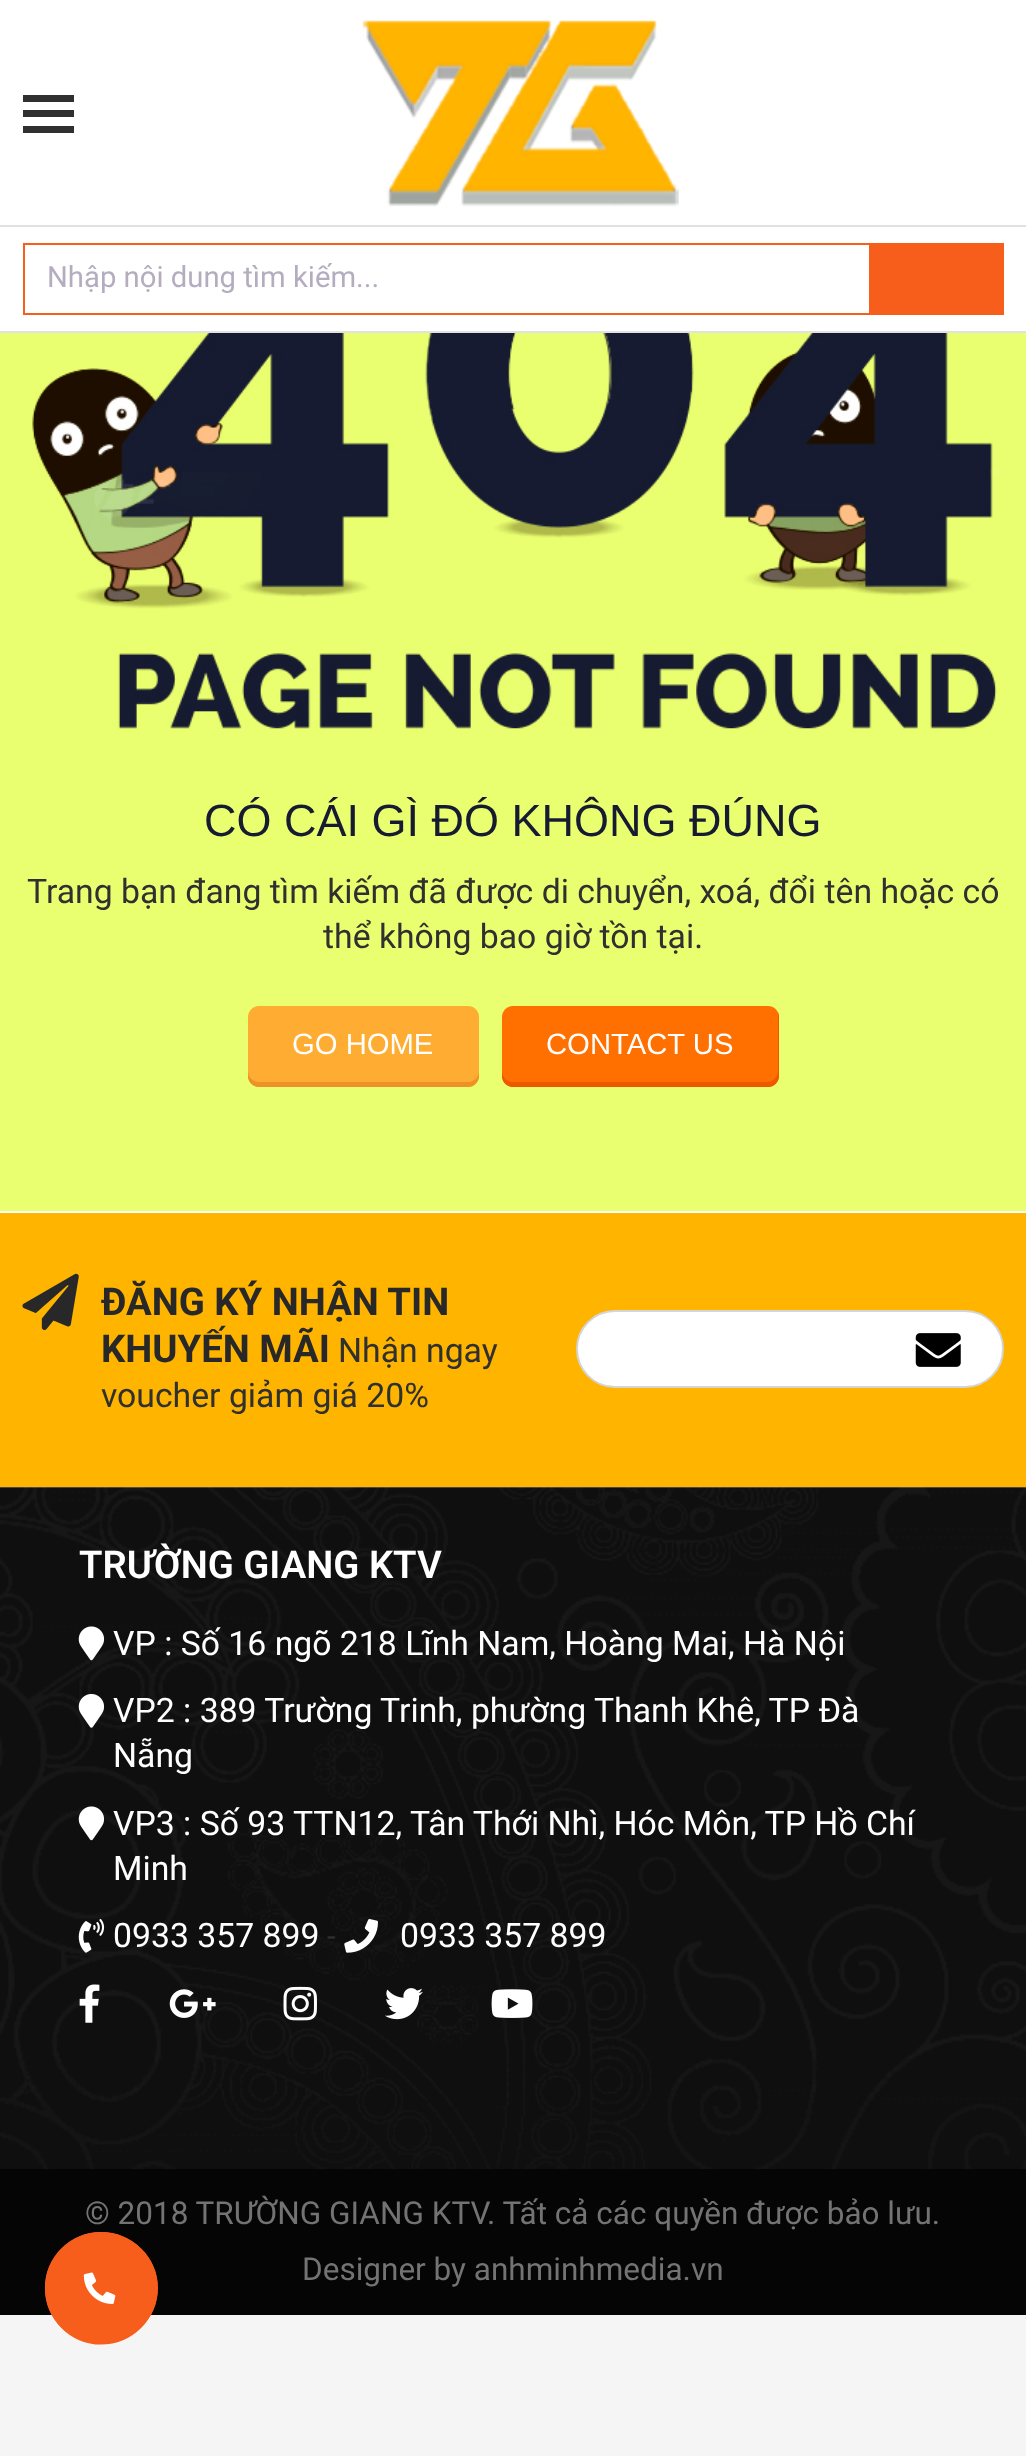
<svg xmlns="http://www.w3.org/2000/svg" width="1026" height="2456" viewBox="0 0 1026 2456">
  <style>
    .t1 { font: 29.25px Roboto; fill: #b4acbf; }
    .t2 { font: 45px Liberation Sans; fill: #161b31; }
    .t3 { font: 33.75px Roboto; fill: #303030; }
    .t4 { font: 29.25px Liberation Sans; fill: #fff; }
    .t5 { font: bold 38.25px Roboto; fill: #282828; }
    .t6 { font: 600 38.25px Roboto; fill: #fff; }
    .t7 { font: 33.75px Roboto; fill: #fff; }
    .t8 { font: 31.5px Roboto; fill: #303030; }
    .t9 { font: 31.5px Roboto; fill: #737373; }
  </style>
  <rect width="100%" height="100%" fill="#f5f5f5"/>
  <rect x="0" y="0" width="1026" height="225" fill="#fff"/>
  <rect x="23" y="110" width="51" height="7" fill="#303030"/>
  <rect x="23" y="95" width="51" height="7" fill="#303030"/>
  <rect x="23" y="126" width="51" height="7" fill="#303030"/>
  <image x="362" y="20" width="317" height="187" href="images/1.png"/>
  <rect x="0" y="227" width="1026" height="104" fill="#fff"/>
  <rect x="0" y="225" width="1026" height="2" fill="#e1e1e1"/>
  <rect x="0" y="331" width="1026" height="2" fill="#e1e1e1"/>
  <rect x="24" y="244" width="979" height="70" fill="none" stroke="#f75e1b" stroke-width="2"/>
  <text x="47" y="287" class="t1">Nhập nội dung tìm kiếm...</text>
  <rect x="869" y="245" width="133" height="68" fill="#f75e1b"/>
  <rect x="0" y="2169" width="1026" height="146" fill="#050505"/>
  <path d="M158 2288C158 2319 132 2344 101 2344C70 2344 45 2319 45 2288C45 2257 70 2232 101 2232C132 2232 158 2257 158 2288Z" fill="#f75e1b"/>
  <path d="M156.5 2288C156.5 2318.5 131.5 2343.5 101 2343.5C71 2343.5 46 2318.5 46 2288C46 2258 71 2233 101 2233C131.5 2233 156.5 2258 156.5 2288Z" fill="none" stroke="#f75e1b" stroke-width="2.2"/>
  <image x="83" y="2272" width="33" height="32" href="images/2.png"/>
  <rect x="0" y="333" width="1026" height="878" fill="#eaff6f"/>
  <image x="32" y="333" width="972" height="396" href="images/3.png"/>
  <text x="204" y="836" class="t2">CÓ CÁI GÌ ĐÓ KHÔNG ĐÚNG</text>
  <text x="27" y="903" class="t3">Trang bạn đang tìm kiếm đã được di chuyển, xoá, đổi tên hoặc có</text>
  <text x="323" y="948" class="t3">thể không bao giờ tồn tại.</text>
  <rect x="248" y="1006" width="231" height="81" rx="11" fill="#ffad32"/>
  <path d="M248 1071V1076C248 1082 253 1087 259 1087H468C474 1087 479 1082 479 1076V1071C479 1077 474 1082 468 1082H259C253 1082 248 1077 248 1071Z" fill="#ec9228"/>
  <text x="292" y="1054" class="t4">GO HOME</text>
  <rect x="502" y="1006" width="277" height="81" rx="11" fill="#ff7000"/>
  <path d="M502 1071V1076C502 1082 507 1087 513 1087H768C774 1087 779 1082 779 1076V1017L778 1012V1071C778 1077 773 1082 767 1082H513C507 1082 502 1077 502 1071Z" fill="#ec5900"/>
  <text x="546" y="1054" class="t4">CONTACT US</text>
  <rect x="0" y="1213" width="1026" height="274" fill="#ffb400"/>
  <rect x="0" y="1211" width="1026" height="2" fill="#fff"/>
  <image x="22" y="1273" width="57" height="57" href="images/4.png"/>
  <text x="101" y="1315" class="t5">ĐĂNG KÝ NHẬN TIN</text>
  <text x="101" y="1362" class="t5">KHUYẾN MÃI</text>
  <text x="338" y="1362" class="t3">Nhận ngay</text>
  <text x="101" y="1407" class="t3">voucher giảm giá 20%</text>
  <rect x="577" y="1311" width="426" height="76" rx="38" fill="#fff" stroke="#d5d5d5" stroke-width="2"/>
  <image x="915" y="1333" width="46" height="34" href="images/5.png"/>
  <image x="0" y="1487" width="1026" height="682" href="images/6.png"/>
  <text x="79" y="1578" class="t6">TRƯỜNG GIANG KTV</text>
  <image x="78" y="1626" width="27" height="35" href="images/7.png"/>
  <text x="113" y="1655" class="t7">VP : Số 16 ngõ 218 Lĩnh Nam, Hoàng Mai, Hà Nội</text>
  <image x="78" y="1694" width="27" height="34" href="images/8.png"/>
  <text x="113" y="1722" class="t7">VP2 : 389 Trường Trinh, phường Thanh Khê, TP Đà</text>
  <text x="113" y="1767" class="t7">Nẵng</text>
  <image x="78" y="1806" width="27" height="35" href="images/9.png"/>
  <text x="113" y="1835" class="t7">VP3 : Số 93 TTN12, Tân Thới Nhì, Hóc Môn, TP Hồ Chí</text>
  <text x="113" y="1880" class="t7">Minh</text>
  <image x="78" y="1919" width="27" height="34" href="images/10.png"/>
  <text x="113" y="1947" class="t7">0933 357 899</text>
  <text x="327" y="1947" class="t8">-</text>
  <image x="344" y="1919" width="34" height="34" href="images/11.png"/>
  <text x="400" y="1947" class="t7">0933 357 899</text>
  <image x="79" y="1984" width="21" height="39" href="images/12.png"/>
  <image x="169" y="1989" width="47" height="29" href="images/13.png"/>
  <image x="283" y="1986" width="34" height="35" href="images/14.png"/>
  <image x="385" y="1988" width="38" height="32" href="images/15.png"/>
  <image x="491" y="1989" width="42" height="29" href="images/16.png"/>
  <text x="85" y="2224" class="t9">© 2018 TRƯỜNG GIANG KTV. Tất cả các quyền được bảo lưu.</text>
  <text x="302" y="2280" class="t9">Designer by anhminhmedia.vn</text>
</svg>
